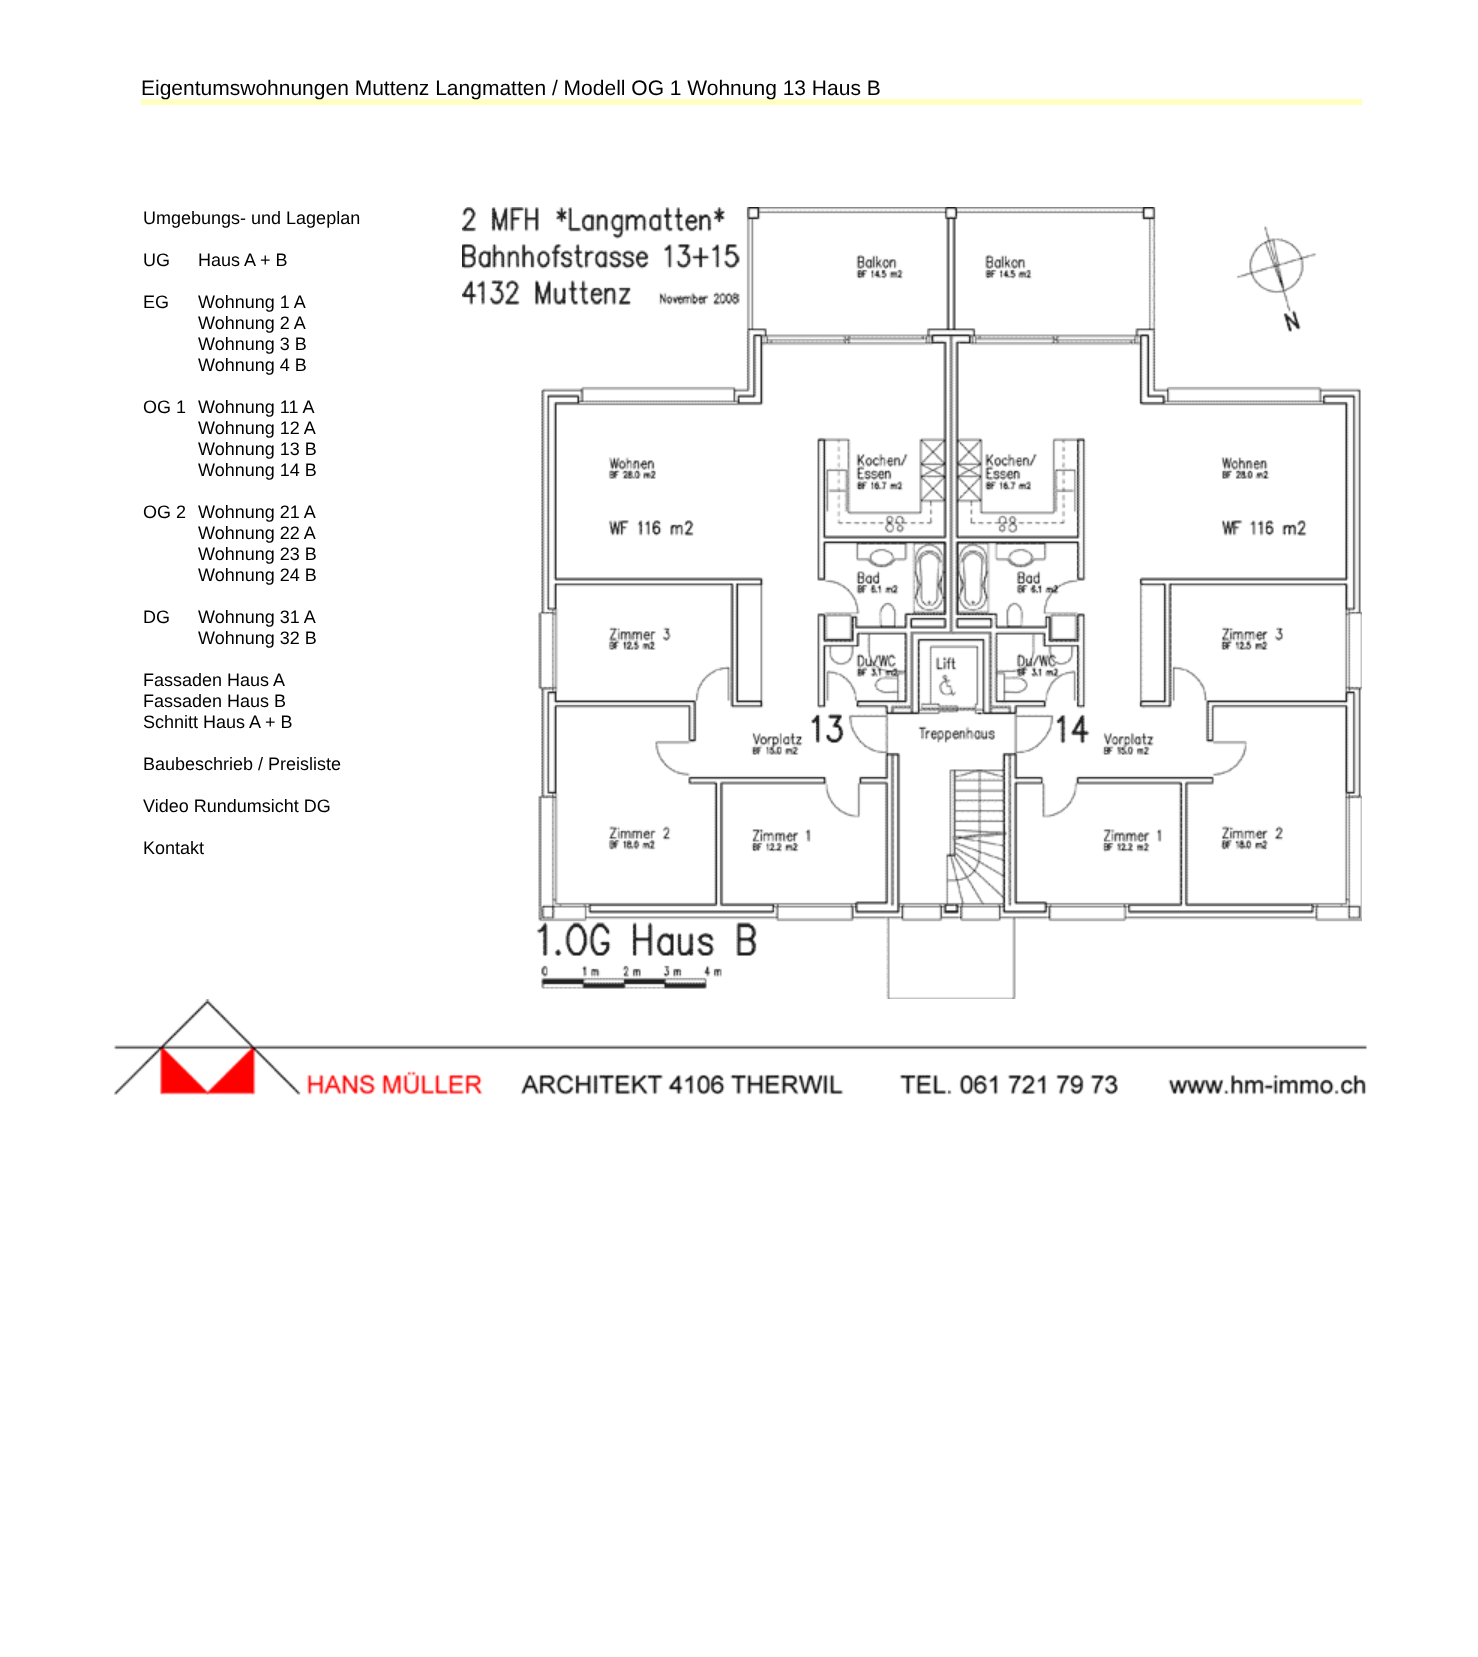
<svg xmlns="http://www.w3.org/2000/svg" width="1478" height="1657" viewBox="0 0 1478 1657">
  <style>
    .t1 { font: 21px Liberation Sans; fill: #000; }
    .t2 { font: 18px Liberation Sans; fill: #000; }
  </style>
  <rect width="100%" height="100%" fill="#fff"/>
  <rect x="141" y="99" width="1221" height="6" fill="#ffffbf"/>
  <text x="141" y="95" class="t1">Eigentumswohnungen Muttenz Langmatten / Modell OG 1 Wohnung 13 Haus B</text>
  <text x="143" y="224" class="t2">Umgebungs- und Lageplan</text>
  <text x="143" y="266" class="t2">UG</text>
  <text x="198" y="266" class="t2">Haus A + B</text>
  <text x="143" y="308" class="t2">EG</text>
  <text x="198" y="308" class="t2">Wohnung 1 A</text>
  <text x="198" y="329" class="t2">Wohnung 2 A</text>
  <text x="198" y="350" class="t2">Wohnung 3 B</text>
  <text x="198" y="371" class="t2">Wohnung 4 B</text>
  <text x="143" y="413" class="t2">OG 1</text>
  <text x="198" y="413" class="t2">Wohnung 11 A</text>
  <text x="198" y="434" class="t2">Wohnung 12 A</text>
  <text x="198" y="455" class="t2">Wohnung 13 B</text>
  <text x="198" y="476" class="t2">Wohnung 14 B</text>
  <text x="143" y="518" class="t2">OG 2</text>
  <text x="198" y="518" class="t2">Wohnung 21 A</text>
  <text x="198" y="539" class="t2">Wohnung 22 A</text>
  <text x="198" y="560" class="t2">Wohnung 23 B</text>
  <text x="198" y="581" class="t2">Wohnung 24 B</text>
  <text x="143" y="623" class="t2">DG</text>
  <text x="198" y="623" class="t2">Wohnung 31 A</text>
  <text x="198" y="644" class="t2">Wohnung 32 B</text>
  <text x="143" y="686" class="t2">Fassaden Haus A</text>
  <text x="143" y="707" class="t2">Fassaden Haus B</text>
  <text x="143" y="728" class="t2">Schnitt Haus A + B</text>
  <text x="143" y="770" class="t2">Baubeschrieb / Preisliste</text>
  <text x="143" y="812" class="t2">Video Rundumsicht DG</text>
  <text x="143" y="854" class="t2">Kontakt</text>
  <image x="462" y="207" width="900" height="792" href="images/1.png"/>
  <image x="114" y="999" width="1253" height="96" href="images/2.png"/>
</svg>
